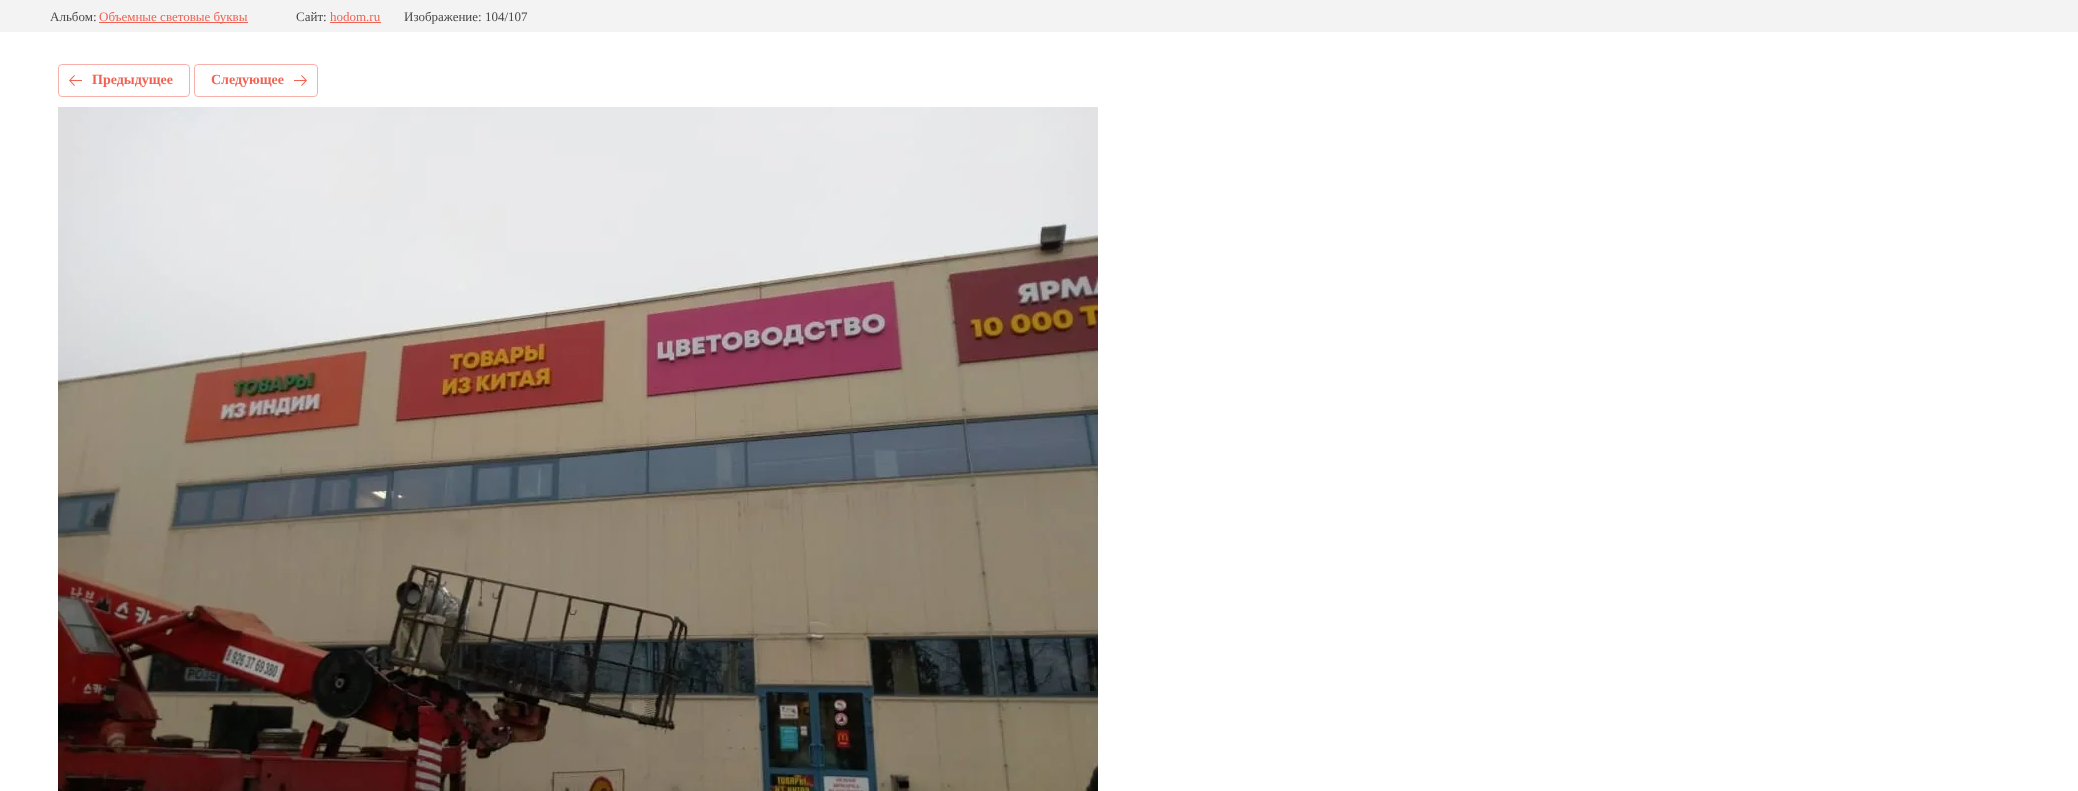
<svg xmlns="http://www.w3.org/2000/svg" width="2078" height="791" viewBox="0 0 2078 791">
  <style>
    .t1 { font: 13px Liberation Serif; fill: #484848; }
    .t2 { font: 13px Liberation Serif; fill: #f06354; }
    .t3 { font: bold 14px Liberation Serif; fill: #f06354; }
  </style>
  <rect width="100%" height="100%" fill="#fff"/>
  <rect x="0" y="0" width="2078" height="32" fill="#f3f3f3"/>
  <text x="50" y="21" class="t1">Альбом:</text>
  <rect x="99" y="22" width="149" height="1" fill="#f06354"/>
  <text x="99" y="21" class="t2">Объемные световые буквы</text>
  <text x="296" y="21" class="t1">Сайт:</text>
  <text x="330" y="21" class="t2">hodom.ru</text>
  <rect x="330" y="22" width="51" height="1" fill="#f06354"/>
  <text x="404" y="21" class="t1">Изображение: 104/107</text>
  <rect x="58.5" y="64.5" width="131" height="32" rx="3.5" fill="none" stroke="#f8b1aa"/>
  <image x="69" y="75" width="13" height="11" href="images/1.png"/>
  <text x="92" y="84" class="t3">Предыдущее</text>
  <rect x="194.5" y="64.5" width="123" height="32" rx="3.5" fill="none" stroke="#f8b1aa"/>
  <text x="211" y="84" class="t3">Следующее</text>
  <image x="294" y="75" width="13" height="11" href="images/2.png"/>
  <image x="58" y="107" width="1040" height="684" href="images/3.png"/>
</svg>
